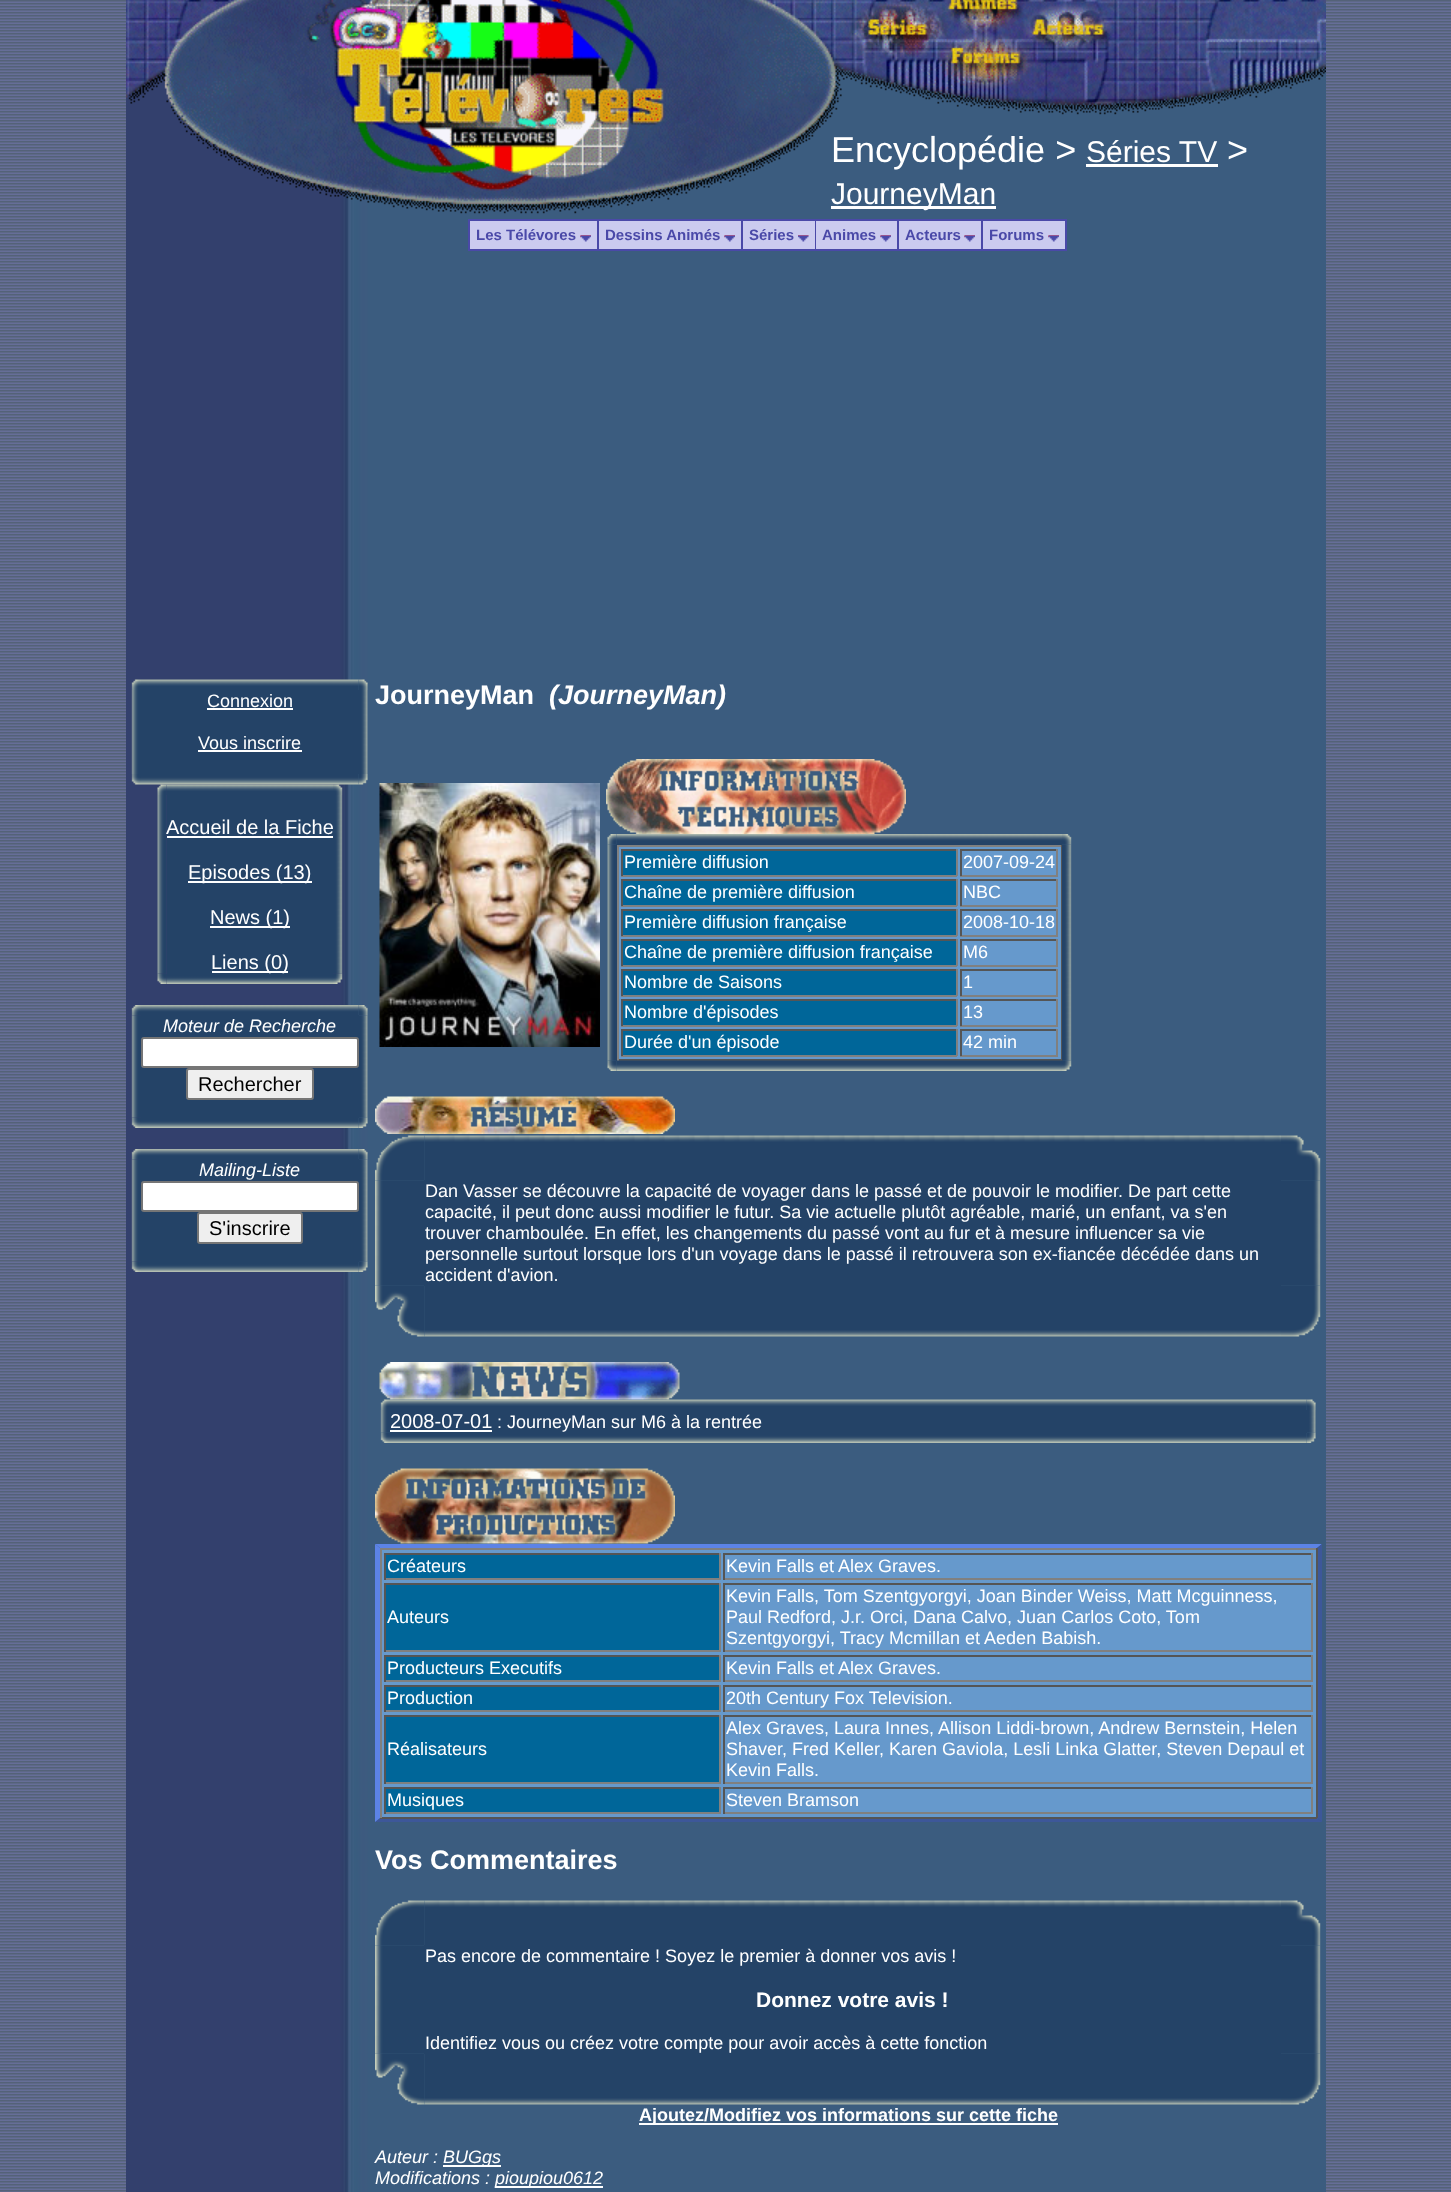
<svg xmlns="http://www.w3.org/2000/svg" width="1451" height="2192" viewBox="0 0 1451 2192">
  <style>
    .t1 { font: 36px Liberation Sans; fill: #fff; }
    .t2 { font: 30px Liberation Sans; fill: #fff; }
    .t3 { font: 18px Liberation Sans; fill: #fff; }
    .t4 { font: 20px Liberation Sans; fill: #fff; }
    .t5 { font: italic 18px Liberation Sans; fill: #fff; }
    .t6 { font: 20px Liberation Sans; fill: #000; }
    .t7 { font: bold 27px Liberation Sans; fill: #fff; }
    .t8 { font: italic bold 27px Liberation Sans; fill: #fff; }
    .t9 { font: bold 21px Liberation Sans; fill: #fff; }
    .t10 { font: bold 18px Liberation Sans; fill: #fff; }
    .t11 { font: bold 15px Liberation Sans; fill: #4a49a8; }
  </style>
  <rect width="100%" height="100%" fill="#fff"/>
  <image x="0" y="0" width="1451" height="2192" href="images/1.png"/>
  <image x="126" y="67" width="1200" height="188" href="images/2.png"/>
  <image x="126" y="0" width="1200" height="214" href="images/3.png"/>
  <text x="831" y="162" class="t1">Encyclopédie &gt;</text>
  <text x="1086" y="162" class="t2">Séries TV</text>
  <rect x="1086" y="164" width="132" height="3" fill="#fff"/>
  <text x="1227" y="162" class="t1">&gt;</text>
  <rect x="831" y="206" width="165" height="3" fill="#fff"/>
  <text x="831" y="204" class="t2">JourneyMan</text>
  <image x="126" y="255" width="1200" height="420" href="images/4.png"/>
  <image x="126" y="675" width="1200" height="1517" href="images/5.png"/>
  <image x="131" y="679" width="10" height="11" href="images/6.png"/>
  <image x="141" y="679" width="218" height="11" href="images/7.png"/>
  <image x="358" y="679" width="10" height="11" href="images/8.png"/>
  <image x="131" y="690" width="10" height="84" href="images/9.png"/>
  <rect x="141" y="690" width="218" height="84" fill="#244367"/>
  <text x="207" y="707" class="t3">Connexion</text>
  <rect x="207" y="708" width="86" height="2" fill="#fff"/>
  <text x="198" y="749" class="t3">Vous inscrire</text>
  <rect x="198" y="750" width="104" height="2" fill="#fff"/>
  <image x="359" y="690" width="9" height="84" href="images/10.png"/>
  <image x="131" y="774" width="10" height="11" href="images/11.png"/>
  <image x="141" y="774" width="218" height="11" href="images/12.png"/>
  <image x="358" y="774" width="10" height="11" href="images/13.png"/>
  <image x="166" y="784" width="167" height="11" href="images/15.png"/>
  <image x="157" y="784" width="10" height="11" href="images/14.png"/>
  <image x="333" y="784" width="10" height="11" href="images/16.png"/>
  <image x="157" y="795" width="10" height="179" href="images/17.png"/>
  <rect x="167" y="795" width="166" height="179" fill="#244367"/>
  <text x="166" y="834" class="t4">Accueil de la Fiche</text>
  <rect x="167" y="836" width="166" height="2" fill="#fff"/>
  <rect x="188" y="881" width="124" height="2" fill="#fff"/>
  <text x="188" y="879" class="t4">Episodes (13)</text>
  <rect x="210" y="926" width="80" height="2" fill="#fff"/>
  <text x="210" y="924" class="t4">News (1)</text>
  <rect x="212" y="971" width="76" height="2" fill="#fff"/>
  <text x="211" y="969" class="t4">Liens (0)</text>
  <image x="333" y="795" width="10" height="179" href="images/18.png"/>
  <image x="166" y="974" width="167" height="10" href="images/20.png"/>
  <image x="157" y="973" width="10" height="11" href="images/19.png"/>
  <image x="333" y="973" width="10" height="11" href="images/21.png"/>
  <image x="131" y="1015" width="10" height="103" href="images/25.png"/>
  <image x="131" y="1005" width="10" height="11" href="images/22.png"/>
  <image x="141" y="1005" width="218" height="10" href="images/23.png"/>
  <rect x="141" y="1015" width="218" height="103" fill="#244367"/>
  <image x="359" y="1015" width="9" height="103" href="images/26.png"/>
  <image x="358" y="1005" width="10" height="11" href="images/24.png"/>
  <text x="163" y="1032" class="t5">Moteur de Recherche</text>
  <rect x="142" y="1038" width="216" height="29" rx="2" fill="#fff" stroke="#767676" stroke-width="2"/>
  <rect x="187" y="1069" width="126" height="30" rx="2" fill="#efefef" stroke="#767676" stroke-width="2"/>
  <text x="198" y="1091" class="t6">Rechercher</text>
  <image x="131" y="1117" width="10" height="11" href="images/27.png"/>
  <image x="141" y="1118" width="218" height="10" href="images/28.png"/>
  <image x="358" y="1117" width="10" height="11" href="images/29.png"/>
  <image x="131" y="1159" width="10" height="103" href="images/25.png"/>
  <image x="131" y="1149" width="10" height="11" href="images/22.png"/>
  <image x="141" y="1149" width="218" height="10" href="images/30.png"/>
  <rect x="141" y="1159" width="218" height="103" fill="#244367"/>
  <image x="359" y="1159" width="9" height="103" href="images/26.png"/>
  <image x="358" y="1149" width="10" height="11" href="images/24.png"/>
  <text x="199" y="1176" class="t5">Mailing-Liste</text>
  <rect x="142" y="1182" width="216" height="29" rx="2" fill="#fff" stroke="#767676" stroke-width="2"/>
  <rect x="198" y="1213" width="104" height="30" rx="2" fill="#efefef" stroke="#767676" stroke-width="2"/>
  <text x="209" y="1235" class="t6">S'inscrire</text>
  <image x="131" y="1261" width="10" height="11" href="images/27.png"/>
  <image x="141" y="1262" width="218" height="10" href="images/31.png"/>
  <image x="358" y="1261" width="10" height="11" href="images/29.png"/>
  <text x="375" y="704" class="t7">JourneyMan</text>
  <text x="549" y="704" class="t8">(JourneyMan)</text>
  <image x="379" y="783" width="221" height="264" href="images/32.png"/>
  <image x="606" y="759" width="300" height="75" href="images/33.png"/>
  <image x="616" y="834" width="446" height="10" href="images/35.png"/>
  <image x="607" y="844" width="9" height="217" href="images/37.png"/>
  <rect x="616" y="844" width="446" height="217" fill="#244367"/>
  <image x="607" y="834" width="10" height="11" href="images/34.png"/>
  <rect x="617" y="845" width="445" height="2" fill="#808080"/>
  <rect x="1061" y="845" width="2" height="216" fill="#555"/>
  <image x="1062" y="844" width="10" height="217" href="images/38.png"/>
  <image x="1062" y="834" width="10" height="11" href="images/36.png"/>
  <rect x="619" y="847" width="442" height="212" fill="#69c"/>
  <rect x="617" y="1059" width="445" height="2" fill="#555"/>
  <rect x="617" y="845" width="2" height="216" fill="#808080"/>
  <rect x="623" y="851" width="333" height="24" fill="#069"/>
  <rect x="621" y="849" width="336" height="2" fill="#555"/>
  <rect x="956" y="849" width="2" height="27" fill="#808080"/>
  <rect x="621" y="875" width="336" height="2" fill="#808080"/>
  <rect x="621" y="849" width="2" height="27" fill="#555"/>
  <text x="624" y="868" class="t3">Première diffusion</text>
  <rect x="960" y="849" width="98" height="2" fill="#555"/>
  <rect x="1056" y="849" width="2" height="27" fill="#808080"/>
  <rect x="960" y="875" width="98" height="2" fill="#808080"/>
  <rect x="960" y="849" width="2" height="27" fill="#555"/>
  <text x="963" y="868" class="t3">2007-09-24</text>
  <rect x="623" y="881" width="333" height="24" fill="#069"/>
  <rect x="621" y="879" width="336" height="2" fill="#555"/>
  <rect x="956" y="879" width="2" height="27" fill="#808080"/>
  <rect x="621" y="905" width="336" height="2" fill="#808080"/>
  <rect x="621" y="879" width="2" height="27" fill="#555"/>
  <text x="624" y="898" class="t3">Chaîne de première diffusion</text>
  <rect x="960" y="879" width="98" height="2" fill="#555"/>
  <rect x="1056" y="879" width="2" height="27" fill="#808080"/>
  <rect x="960" y="905" width="98" height="2" fill="#808080"/>
  <rect x="960" y="879" width="2" height="27" fill="#555"/>
  <text x="963" y="898" class="t3">NBC</text>
  <rect x="623" y="911" width="333" height="24" fill="#069"/>
  <rect x="621" y="909" width="336" height="2" fill="#555"/>
  <rect x="956" y="909" width="2" height="27" fill="#808080"/>
  <rect x="621" y="935" width="336" height="2" fill="#808080"/>
  <rect x="621" y="909" width="2" height="27" fill="#555"/>
  <text x="624" y="928" class="t3">Première diffusion française</text>
  <rect x="960" y="909" width="98" height="2" fill="#555"/>
  <rect x="1056" y="909" width="2" height="27" fill="#808080"/>
  <rect x="960" y="935" width="98" height="2" fill="#808080"/>
  <rect x="960" y="909" width="2" height="27" fill="#555"/>
  <text x="963" y="928" class="t3">2008-10-18</text>
  <rect x="623" y="941" width="333" height="24" fill="#069"/>
  <rect x="621" y="939" width="336" height="2" fill="#555"/>
  <rect x="956" y="939" width="2" height="27" fill="#808080"/>
  <rect x="621" y="965" width="336" height="2" fill="#808080"/>
  <rect x="621" y="939" width="2" height="27" fill="#555"/>
  <text x="624" y="958" class="t3">Chaîne de première diffusion française</text>
  <rect x="960" y="939" width="98" height="2" fill="#555"/>
  <rect x="1056" y="939" width="2" height="27" fill="#808080"/>
  <rect x="960" y="965" width="98" height="2" fill="#808080"/>
  <rect x="960" y="939" width="2" height="27" fill="#555"/>
  <text x="963" y="958" class="t3">M6</text>
  <rect x="623" y="971" width="333" height="24" fill="#069"/>
  <rect x="621" y="969" width="336" height="2" fill="#555"/>
  <rect x="956" y="969" width="2" height="27" fill="#808080"/>
  <rect x="621" y="995" width="336" height="2" fill="#808080"/>
  <rect x="621" y="969" width="2" height="27" fill="#555"/>
  <text x="624" y="988" class="t3">Nombre de Saisons</text>
  <rect x="960" y="969" width="98" height="2" fill="#555"/>
  <rect x="1056" y="969" width="2" height="27" fill="#808080"/>
  <rect x="960" y="995" width="98" height="2" fill="#808080"/>
  <rect x="960" y="969" width="2" height="27" fill="#555"/>
  <text x="963" y="988" class="t3">1</text>
  <rect x="623" y="1001" width="333" height="24" fill="#069"/>
  <rect x="621" y="999" width="336" height="2" fill="#555"/>
  <rect x="956" y="999" width="2" height="27" fill="#808080"/>
  <rect x="621" y="1025" width="336" height="2" fill="#808080"/>
  <rect x="621" y="999" width="2" height="27" fill="#555"/>
  <text x="624" y="1018" class="t3">Nombre d'épisodes</text>
  <rect x="960" y="999" width="98" height="2" fill="#555"/>
  <rect x="1056" y="999" width="2" height="27" fill="#808080"/>
  <rect x="960" y="1025" width="98" height="2" fill="#808080"/>
  <rect x="960" y="999" width="2" height="27" fill="#555"/>
  <text x="963" y="1018" class="t3">13</text>
  <rect x="623" y="1031" width="333" height="24" fill="#069"/>
  <rect x="621" y="1029" width="336" height="2" fill="#555"/>
  <rect x="956" y="1029" width="2" height="27" fill="#808080"/>
  <rect x="621" y="1055" width="336" height="2" fill="#808080"/>
  <rect x="621" y="1029" width="2" height="27" fill="#555"/>
  <text x="624" y="1048" class="t3">Durée d'un épisode</text>
  <rect x="960" y="1029" width="98" height="2" fill="#555"/>
  <rect x="1056" y="1029" width="2" height="27" fill="#808080"/>
  <rect x="960" y="1055" width="98" height="2" fill="#808080"/>
  <rect x="960" y="1029" width="2" height="27" fill="#555"/>
  <text x="963" y="1048" class="t3">42 min</text>
  <image x="616" y="1060" width="446" height="11" href="images/40.png"/>
  <image x="607" y="1060" width="10" height="11" href="images/39.png"/>
  <image x="1062" y="1060" width="10" height="11" href="images/41.png"/>
  <image x="375" y="1096" width="300" height="38" href="images/42.png"/>
  <image x="424" y="1135" width="857" height="45" href="images/44.png"/>
  <image x="375" y="1180" width="49" height="106" href="images/46.png"/>
  <rect x="424" y="1180" width="857" height="106" fill="#244367"/>
  <image x="375" y="1135" width="50" height="46" href="images/43.png"/>
  <image x="1281" y="1180" width="40" height="106" href="images/47.png"/>
  <image x="1281" y="1135" width="40" height="46" href="images/45.png"/>
  <text x="425" y="1197" class="t3">Dan Vasser se découvre la capacité de voyager dans le passé et de pouvoir le modifier. De part cette</text>
  <text x="425" y="1218" class="t3">capacité, il peut donc aussi modifier le futur. Sa vie actuelle plutôt agréable, marié, un enfant, va s'en</text>
  <text x="425" y="1239" class="t3">trouver chamboulée. En effet, les changements du passé vont au fur et à mesure influencer sa vie</text>
  <text x="425" y="1260" class="t3">personnelle surtout lorsque lors d'un voyage dans le passé il retrouvera son ex-fiancée décédée dans un</text>
  <text x="425" y="1281" class="t3">accident d'avion.</text>
  <image x="424" y="1286" width="857" height="51" href="images/49.png"/>
  <image x="375" y="1285" width="50" height="52" href="images/48.png"/>
  <image x="1281" y="1285" width="40" height="52" href="images/50.png"/>
  <image x="390" y="1399" width="917" height="11" href="images/53.png"/>
  <image x="379" y="1362" width="301" height="38" href="images/51.png"/>
  <image x="380" y="1399" width="10" height="11" href="images/52.png"/>
  <image x="1306" y="1399" width="10" height="11" href="images/54.png"/>
  <image x="380" y="1410" width="10" height="23" href="images/55.png"/>
  <rect x="390" y="1410" width="917" height="23" fill="#244367"/>
  <text x="390" y="1428" class="t4">2008-07-01</text>
  <rect x="390" y="1430" width="102" height="2" fill="#fff"/>
  <text x="497" y="1428" class="t3">: JourneyMan sur M6 à la rentrée</text>
  <image x="1307" y="1410" width="9" height="23" href="images/56.png"/>
  <image x="380" y="1432" width="10" height="11" href="images/57.png"/>
  <image x="390" y="1433" width="917" height="10" href="images/58.png"/>
  <image x="1306" y="1432" width="10" height="11" href="images/59.png"/>
  <image x="375" y="1468" width="300" height="76" href="images/60.png"/>
  <path d="M375 1544H1322L1317 1548H380Z" fill="#5c83e6"/>
  <path d="M1322 1544V1822L1317 1818V1548Z" fill="#3d5799"/>
  <path d="M1322 1822H375L380 1818H1317Z" fill="#3d5799"/>
  <path d="M375 1822V1544L380 1548V1818Z" fill="#5c83e6"/>
  <rect x="382" y="1550" width="934" height="267" fill="#69c"/>
  <rect x="380" y="1548" width="937" height="2" fill="#808080"/>
  <rect x="1316" y="1548" width="2" height="270" fill="#555"/>
  <rect x="380" y="1817" width="937" height="2" fill="#555"/>
  <rect x="380" y="1548" width="2" height="270" fill="#808080"/>
  <rect x="386" y="1555" width="333" height="23" fill="#069"/>
  <rect x="384" y="1553" width="336" height="2" fill="#555"/>
  <rect x="719" y="1553" width="2" height="27" fill="#808080"/>
  <rect x="384" y="1578" width="336" height="2" fill="#808080"/>
  <rect x="384" y="1553" width="2" height="27" fill="#555"/>
  <text x="387" y="1572" class="t3">Créateurs</text>
  <rect x="723" y="1553" width="590" height="2" fill="#555"/>
  <rect x="1311" y="1553" width="2" height="27" fill="#808080"/>
  <rect x="723" y="1578" width="590" height="2" fill="#808080"/>
  <rect x="723" y="1553" width="2" height="27" fill="#555"/>
  <text x="726" y="1572" class="t3">Kevin Falls et Alex Graves.</text>
  <rect x="386" y="1585" width="333" height="65" fill="#069"/>
  <rect x="384" y="1583" width="336" height="2" fill="#555"/>
  <rect x="719" y="1583" width="2" height="69" fill="#808080"/>
  <rect x="384" y="1650" width="336" height="2" fill="#808080"/>
  <rect x="384" y="1583" width="2" height="69" fill="#555"/>
  <text x="387" y="1623" class="t3">Auteurs</text>
  <rect x="723" y="1583" width="590" height="2" fill="#555"/>
  <rect x="1311" y="1583" width="2" height="69" fill="#808080"/>
  <rect x="723" y="1650" width="590" height="2" fill="#808080"/>
  <rect x="723" y="1583" width="2" height="69" fill="#555"/>
  <text x="726" y="1602" class="t3">Kevin Falls, Tom Szentgyorgyi, Joan Binder Weiss, Matt Mcguinness,</text>
  <text x="726" y="1623" class="t3">Paul Redford, J.r. Orci, Dana Calvo, Juan Carlos Coto, Tom</text>
  <text x="726" y="1644" class="t3">Szentgyorgyi, Tracy Mcmillan et Aeden Babish.</text>
  <rect x="386" y="1657" width="333" height="23" fill="#069"/>
  <rect x="384" y="1655" width="336" height="2" fill="#555"/>
  <rect x="719" y="1655" width="2" height="27" fill="#808080"/>
  <rect x="384" y="1680" width="336" height="2" fill="#808080"/>
  <rect x="384" y="1655" width="2" height="27" fill="#555"/>
  <text x="387" y="1674" class="t3">Producteurs Executifs</text>
  <rect x="723" y="1655" width="590" height="2" fill="#555"/>
  <rect x="1311" y="1655" width="2" height="27" fill="#808080"/>
  <rect x="723" y="1680" width="590" height="2" fill="#808080"/>
  <rect x="723" y="1655" width="2" height="27" fill="#555"/>
  <text x="726" y="1674" class="t3">Kevin Falls et Alex Graves.</text>
  <rect x="386" y="1687" width="333" height="23" fill="#069"/>
  <rect x="384" y="1685" width="336" height="2" fill="#555"/>
  <rect x="719" y="1685" width="2" height="27" fill="#808080"/>
  <rect x="384" y="1710" width="336" height="2" fill="#808080"/>
  <rect x="384" y="1685" width="2" height="27" fill="#555"/>
  <text x="387" y="1704" class="t3">Production</text>
  <rect x="723" y="1685" width="590" height="2" fill="#555"/>
  <rect x="1311" y="1685" width="2" height="27" fill="#808080"/>
  <rect x="723" y="1710" width="590" height="2" fill="#808080"/>
  <rect x="723" y="1685" width="2" height="27" fill="#555"/>
  <text x="726" y="1704" class="t3">20th Century Fox Television.</text>
  <rect x="386" y="1717" width="333" height="65" fill="#069"/>
  <rect x="384" y="1715" width="336" height="2" fill="#555"/>
  <rect x="719" y="1715" width="2" height="69" fill="#808080"/>
  <rect x="384" y="1782" width="336" height="2" fill="#808080"/>
  <rect x="384" y="1715" width="2" height="69" fill="#555"/>
  <text x="387" y="1755" class="t3">Réalisateurs</text>
  <rect x="723" y="1715" width="590" height="2" fill="#555"/>
  <rect x="1311" y="1715" width="2" height="69" fill="#808080"/>
  <rect x="723" y="1782" width="590" height="2" fill="#808080"/>
  <rect x="723" y="1715" width="2" height="69" fill="#555"/>
  <text x="726" y="1734" class="t3">Alex Graves, Laura Innes, Allison Liddi-brown, Andrew Bernstein, Helen</text>
  <text x="726" y="1755" class="t3">Shaver, Fred Keller, Karen Gaviola, Lesli Linka Glatter, Steven Depaul et</text>
  <text x="726" y="1776" class="t3">Kevin Falls.</text>
  <rect x="386" y="1789" width="333" height="23" fill="#069"/>
  <rect x="384" y="1787" width="336" height="2" fill="#555"/>
  <rect x="719" y="1787" width="2" height="27" fill="#808080"/>
  <rect x="384" y="1812" width="336" height="2" fill="#808080"/>
  <rect x="384" y="1787" width="2" height="27" fill="#555"/>
  <text x="387" y="1806" class="t3">Musiques</text>
  <rect x="723" y="1787" width="590" height="2" fill="#555"/>
  <rect x="1311" y="1787" width="2" height="27" fill="#808080"/>
  <rect x="723" y="1812" width="590" height="2" fill="#808080"/>
  <rect x="723" y="1787" width="2" height="27" fill="#555"/>
  <text x="726" y="1806" class="t3">Steven Bramson</text>
  <text x="375" y="1869" class="t7">Vos Commentaires</text>
  <image x="424" y="1900" width="857" height="45" href="images/44.png"/>
  <image x="375" y="1945" width="49" height="109" href="images/61.png"/>
  <rect x="424" y="1945" width="857" height="109" fill="#244367"/>
  <image x="375" y="1900" width="50" height="46" href="images/43.png"/>
  <image x="1281" y="1945" width="40" height="109" href="images/62.png"/>
  <image x="1281" y="1900" width="40" height="46" href="images/45.png"/>
  <text x="425" y="1962" class="t3">Pas encore de commentaire ! Soyez le premier à donner vos avis !</text>
  <text x="756" y="2007" class="t9">Donnez votre avis !</text>
  <text x="425" y="2049" class="t3">Identifiez vous ou créez votre compte pour avoir accès à cette fonction</text>
  <image x="424" y="2054" width="857" height="51" href="images/49.png"/>
  <image x="375" y="2053" width="50" height="52" href="images/63.png"/>
  <image x="1281" y="2053" width="40" height="52" href="images/64.png"/>
  <rect x="639" y="2123" width="419" height="2" fill="#fff"/>
  <text x="639" y="2121" class="t10">Ajoutez/Modifiez vos informations sur cette fiche</text>
  <text x="375" y="2163" class="t5">Auteur :</text>
  <rect x="443" y="2165" width="58" height="2" fill="#fff"/>
  <text x="443" y="2163" class="t5">BUGgs</text>
  <text x="375" y="2184" class="t5">Modifications :</text>
  <rect x="495" y="2186" width="108" height="2" fill="#fff"/>
  <text x="495" y="2184" class="t5">pioupiou0612</text>
  <rect x="469" y="220" width="129" height="30" fill="none" stroke="#4a49a8" stroke-width="2"/>
  <rect x="470" y="221" width="127" height="28" fill="#cbcbef"/>
  <text x="476" y="240" class="t11">Les Télévores</text>
  <image x="580" y="235" width="11" height="3" href="images/65.png"/>
  <rect x="581" y="236" width="10" height="2" fill="#cbcbef"/>
  <image x="580" y="235" width="11" height="7" href="images/66.png"/>
  <rect x="598" y="220" width="144" height="30" fill="none" stroke="#4a49a8" stroke-width="2"/>
  <rect x="599" y="221" width="142" height="28" fill="#cbcbef"/>
  <text x="605" y="240" class="t11">Dessins Animés</text>
  <image x="724" y="235" width="11" height="3" href="images/65.png"/>
  <rect x="725" y="236" width="10" height="2" fill="#cbcbef"/>
  <image x="724" y="235" width="11" height="7" href="images/66.png"/>
  <rect x="742" y="220" width="73" height="30" fill="none" stroke="#4a49a8" stroke-width="2"/>
  <rect x="743" y="221" width="72" height="28" fill="#cbcbef"/>
  <text x="749" y="240" class="t11">Séries</text>
  <image x="798" y="235" width="11" height="1" href="images/67.png"/>
  <image x="798" y="235" width="11" height="7" href="images/68.png"/>
  <rect x="816" y="220" width="82" height="30" fill="none" stroke="#4a49a8" stroke-width="2"/>
  <rect x="816" y="221" width="81" height="28" fill="#cbcbef"/>
  <text x="822" y="240" class="t11">Animes</text>
  <image x="880" y="235" width="11" height="3" href="images/69.png"/>
  <rect x="881" y="236" width="10" height="2" fill="#cbcbef"/>
  <image x="880" y="235" width="11" height="7" href="images/70.png"/>
  <rect x="898" y="220" width="84" height="30" fill="none" stroke="#4a49a8" stroke-width="2"/>
  <rect x="899" y="221" width="82" height="28" fill="#cbcbef"/>
  <text x="905" y="240" class="t11">Acteurs</text>
  <image x="964" y="235" width="11" height="3" href="images/69.png"/>
  <rect x="965" y="236" width="10" height="2" fill="#cbcbef"/>
  <image x="964" y="235" width="11" height="7" href="images/70.png"/>
  <rect x="982" y="220" width="84" height="30" fill="none" stroke="#4a49a8" stroke-width="2"/>
  <rect x="983" y="221" width="82" height="28" fill="#cbcbef"/>
  <text x="989" y="240" class="t11">Forums</text>
  <image x="1048" y="235" width="11" height="3" href="images/65.png"/>
  <rect x="1049" y="236" width="10" height="2" fill="#cbcbef"/>
  <image x="1048" y="235" width="11" height="7" href="images/66.png"/>
</svg>
